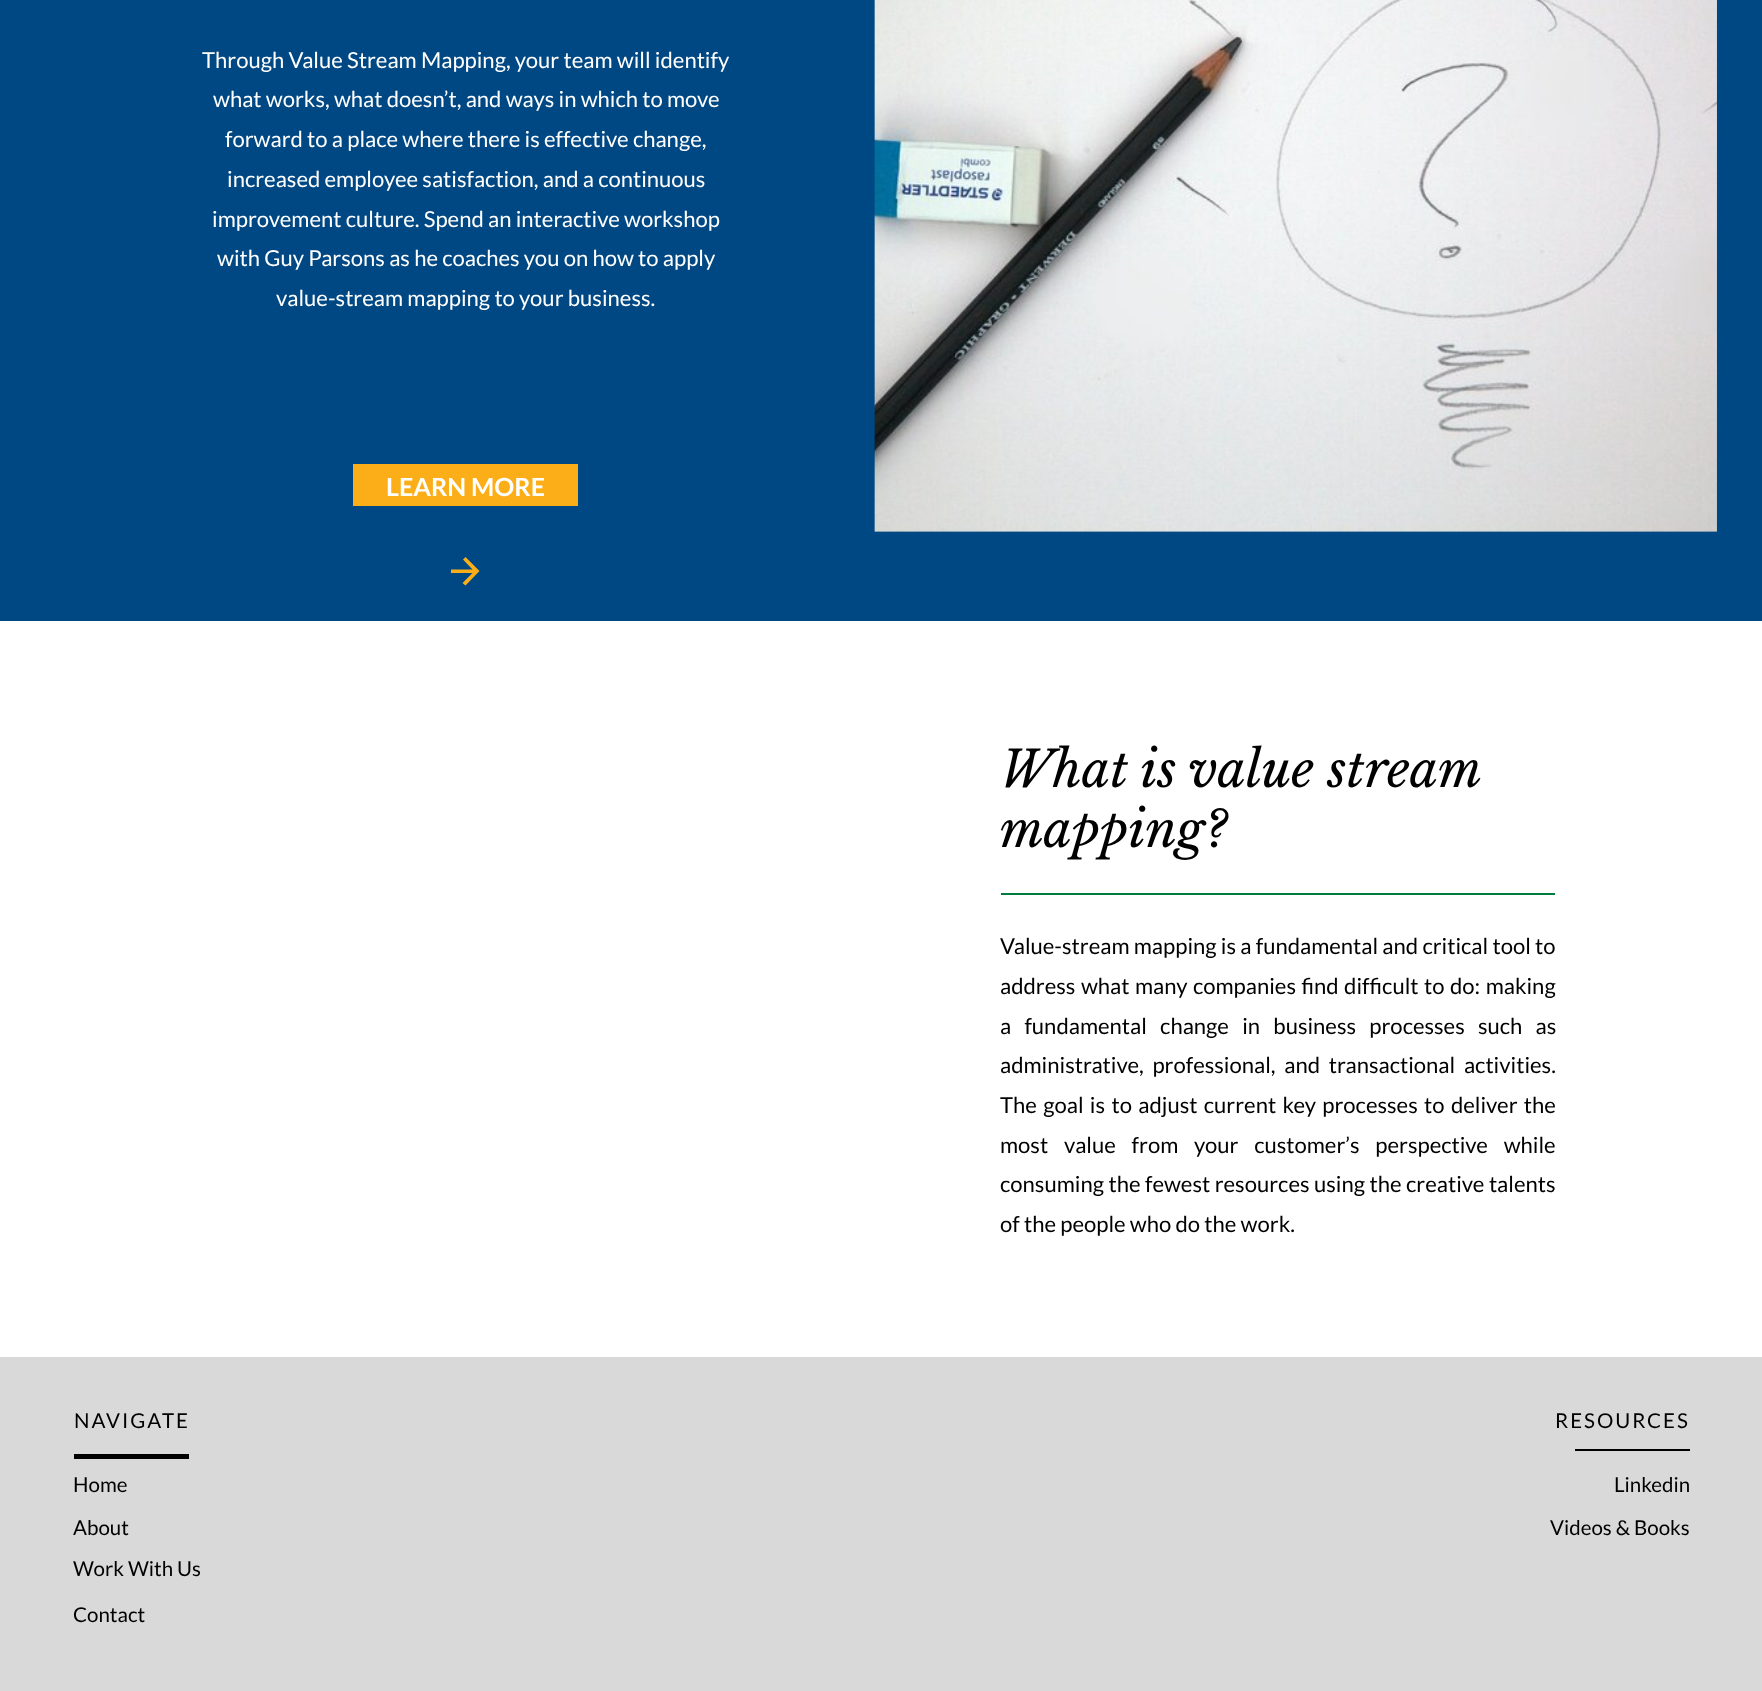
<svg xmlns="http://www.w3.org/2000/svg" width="1762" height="1691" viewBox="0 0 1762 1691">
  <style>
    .t1 { font: 22.05px Lato; fill: #fff; }
    .t2 { font: bold 25px Lato; fill: #fff; }
    .t3 { font: italic 50px Libre Baskerville; fill: #000; }
    .t4 { font: 22.05px Lato; fill: #000; }
    .t5 { font: 20.5px Lato; letter-spacing: 2px; fill: #000; }
    .t6 { font: 20.5px Lato; fill: #000; }
  </style>
  <rect width="100%" height="100%" fill="#fff"/>
  <rect x="0" y="0" width="1762" height="621" fill="#004883"/>
  <path d="M451 573H472.5L462.5 583L465.5 585.5L479.5 571L465.5 557L463 559.5L472.5 569.5H451Z" fill="#fbae17"/>
  <text x="202" y="68" class="t1">Through Value Stream Mapping, your team will identify</text>
  <text x="213" y="107" class="t1">what works, what doesn’t, and ways in which to move</text>
  <text x="225" y="147" class="t1">forward to a place where there is effective change,</text>
  <text x="227" y="187" class="t1">increased employee satisfaction, and a continuous</text>
  <text x="212" y="227" class="t1">improvement culture. Spend an interactive workshop</text>
  <text x="217" y="266" class="t1">with Guy Parsons as he coaches you on how to apply</text>
  <text x="276" y="306" class="t1">value-stream mapping to your business.</text>
  <image x="874" y="0" width="843" height="532" href="images/1.png"/>
  <rect x="353" y="464" width="225" height="42" fill="#fbae17"/>
  <text x="386" y="496" class="t2">LEARN MORE</text>
  <text x="1000" y="787" word-spacing="-0.5" class="t3">What is value stream</text>
  <text x="1000" y="847" class="t3">mapping?</text>
  <rect x="1001" y="893" width="554" height="2" fill="#007b40"/>
  <text x="1000" y="954" class="t4">Value-stream mapping is a fundamental and critical tool to</text>
  <text x="1000" y="994" word-spacing="1.25" class="t4">address what many companies find difficult to do: making</text>
  <text x="1000" y="1034" word-spacing="9" class="t4">a fundamental change in business processes such as</text>
  <text x="1000" y="1073" word-spacing="4.5" class="t4">administrative, professional, and transactional activities.</text>
  <text x="1000" y="1113" word-spacing="2.1" class="t4">The goal is to adjust current key processes to deliver the</text>
  <text x="1000" y="1153" word-spacing="11.5" class="t4">most value from your customer’s perspective while</text>
  <text x="1000" y="1192" word-spacing="0.25" class="t4">consuming the fewest resources using the creative talents</text>
  <text x="1000" y="1232" class="t4">of the people who do the work.</text>
  <rect x="0" y="1357" width="1762" height="334" fill="#d9d9d9"/>
  <text x="74" y="1428" class="t5">NAVIGATE</text>
  <text x="1555" y="1428" class="t5">RESOURCES</text>
  <rect x="1575" y="1449" width="115" height="2" fill="#000"/>
  <rect x="74" y="1454" width="115" height="5" fill="#000"/>
  <text x="73" y="1492" class="t6">Home</text>
  <text x="1614" y="1492" class="t6">Linkedin</text>
  <text x="73" y="1535" class="t6">About</text>
  <text x="1550" y="1535" class="t6">Videos &amp; Books</text>
  <text x="73" y="1576" class="t6">Work With Us</text>
  <text x="73" y="1622" class="t6">Contact</text>
</svg>
